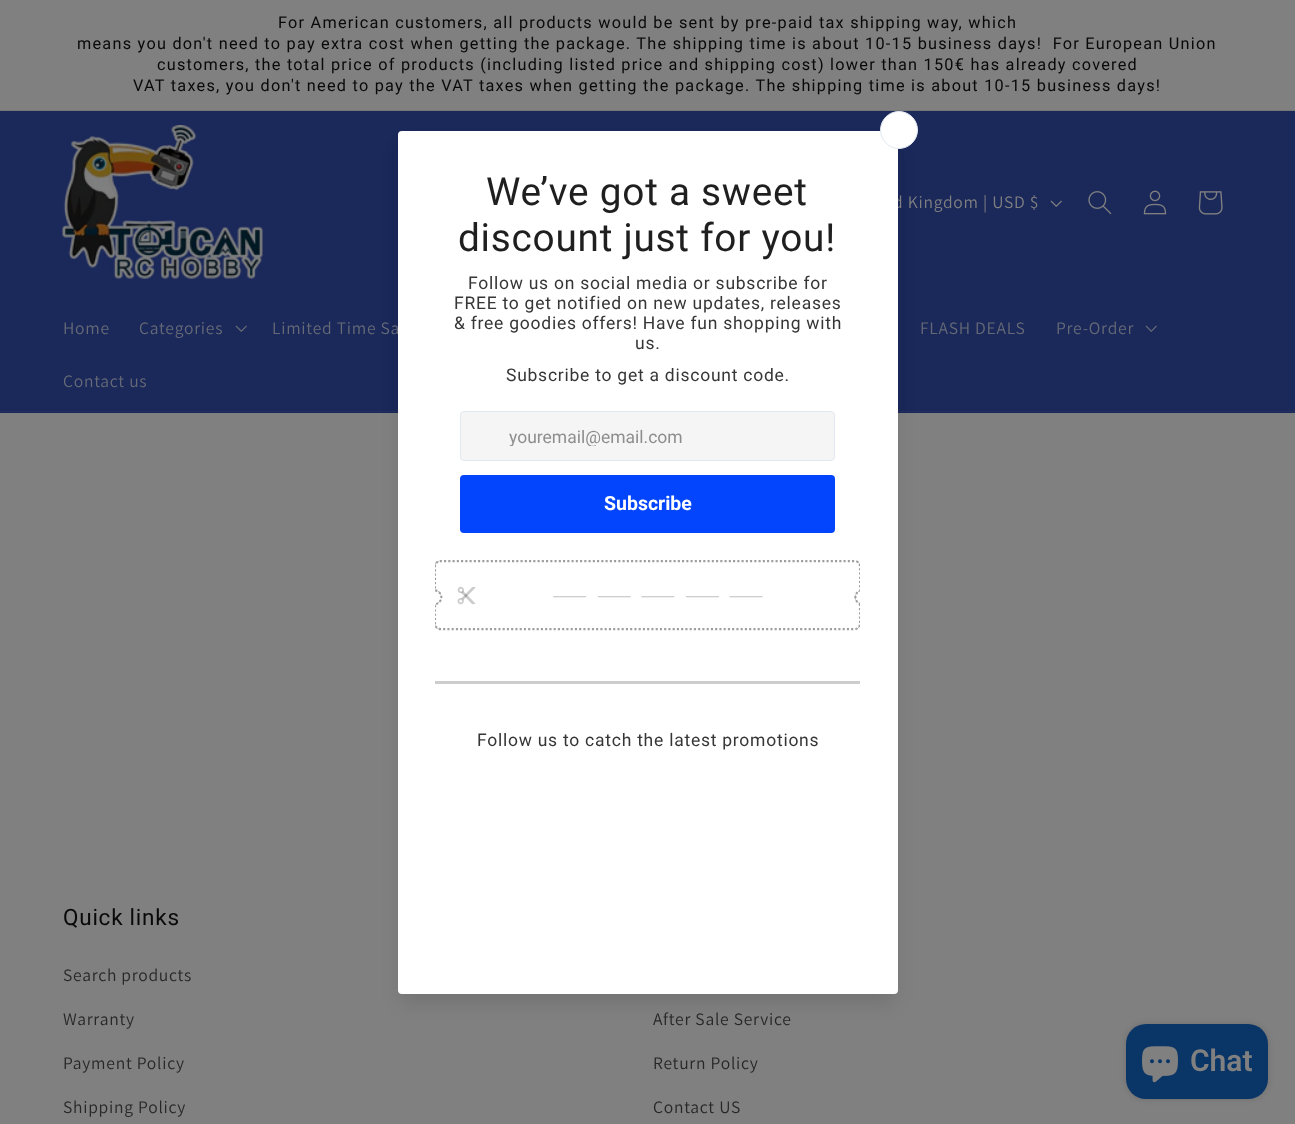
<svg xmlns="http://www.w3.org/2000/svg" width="1295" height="1124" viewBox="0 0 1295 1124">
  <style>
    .t1 { font: 16.25px Roboto; letter-spacing: 1.25px; fill: #090909; }
    .t2 { font: 17.5px Assistant; letter-spacing: 0.75px; fill: #808080; }
    .t3 { font: 17.5px Assistant; letter-spacing: 0.75px; fill: #666a76; }
    .t4 { font: 38.75px Roboto; letter-spacing: 0.75px; fill: #1f1f1f; }
    .t5 { font: 17.5px Roboto; letter-spacing: 0.75px; fill: #363636; }
    .t6 { font: 17.5px Roboto; fill: #8e8e8e; }
    .t7 { font: bold 19.5px Roboto; fill: #fff; }
    .t8 { font: 22.5px Roboto; letter-spacing: 0.75px; fill: #090909; }
    .t9 { font: 17.5px Assistant; letter-spacing: 0.75px; fill: #272727; }
    .t10 { font: 600 30px Roboto; fill: #808080; }
  </style>
  <defs>
    <clipPath id="clip1"><rect x="464" y="426" width="367" height="20"/></clipPath>
  </defs>
  <rect width="100%" height="100%" fill="#808080"/>
  <rect x="0" y="110" width="1295" height="1" fill="#767676"/>
  <text x="278" y="28" class="t1">For American customers, all products would be sent by pre-paid tax shipping way, which</text>
  <text x="77" y="49" class="t1" xml:space="preserve">means you don't need to pay extra cost when getting the package. The shipping time is about 10-15 business days!  For European Union</text>
  <text x="157" y="70" class="t1">customers, the total price of products (including listed price and shipping cost) lower than 150€ has already covered</text>
  <text x="133" y="91" class="t1">VAT taxes, you don't need to pay the VAT taxes when getting the package. The shipping time is about 10-15 business days!</text>
  <rect x="0" y="111" width="1295" height="302" fill="#1a285a"/>
  <rect x="0" y="411" width="1295" height="1" fill="#222f5d"/>
  <rect x="401" y="148" width="493" height="855" fill="#0000001a" filter="blur(9.5px)"/>
  <text x="893" y="208" class="t2">d Kingdom | USD $</text>
  <text x="272" y="334" class="t3">Limited Time Sa</text>
  <rect x="398" y="131" width="500" height="863" rx="4" fill="#fff"/>
  <circle cx="899" cy="130" r="18.5" fill="#fff" stroke="#e2e8f0"/>
  <text x="486" y="205" class="t4">We’ve got a sweet</text>
  <text x="458" y="251" class="t4">discount just for you!</text>
  <text x="468" y="289" class="t5">Follow us on social media or subscribe for</text>
  <text x="454" y="309" class="t5">FREE to get notified on new updates, releases</text>
  <text x="454" y="329" class="t5">&amp; free goodies offers! Have fun shopping with</text>
  <text x="635" y="349" class="t5">us.</text>
  <text x="506" y="381" class="t5">Subscribe to get a discount code.</text>
  <rect x="460.5" y="411.5" width="374" height="49" rx="3.5" fill="#f5f5f5" stroke="#e2e8f0"/>
  <g clip-path="url(#clip1)">
    <text x="509" y="443" class="t6">youremail@email.com</text>
  </g>
  <rect x="460" y="475" width="375" height="58" rx="4" fill="#0345fc"/>
  <text x="604" y="510" class="t7">Subscribe</text>
  <image x="435" y="560" width="425" height="71" href="images/1.png"/>
  <rect x="435" y="681" width="425" height="3" fill="#cdcdcd"/>
  <text x="477" y="746" class="t5">Follow us to catch the latest promotions</text>
  <image x="62" y="125" width="201" height="154" href="images/2.png"/>
  <image x="1050" y="200" width="12" height="7" href="images/3.png"/>
  <image x="1088" y="191" width="24" height="24" href="images/4.png"/>
  <image x="1143" y="190" width="24" height="25" href="images/5.png"/>
  <image x="1198" y="191" width="25" height="24" href="images/6.png"/>
  <text x="63" y="334" class="t3">Home</text>
  <text x="139" y="334" class="t3">Categories</text>
  <image x="235" y="325" width="12" height="7" href="images/7.png"/>
  <text x="920" y="334" class="t3">FLASH DEALS</text>
  <text x="1056" y="334" class="t3">Pre-Order</text>
  <image x="1145" y="325" width="12" height="7" href="images/7.png"/>
  <text x="63" y="387" class="t3">Contact us</text>
  <text x="63" y="925" class="t8">Quick links</text>
  <text x="63" y="981" class="t9">Search products</text>
  <text x="63" y="1025" class="t9">Warranty</text>
  <text x="63" y="1069" class="t9">Payment Policy</text>
  <text x="63" y="1113" class="t9">Shipping Policy</text>
  <text x="653" y="1025" class="t9">After Sale Service</text>
  <text x="653" y="1069" class="t9">Return Policy</text>
  <text x="653" y="1113" class="t9">Contact US</text>
  <rect x="1126" y="1024" width="142" height="75" rx="20" fill="#00000026" filter="blur(3px)"/>
  <rect x="1126" y="1024" width="142" height="75" rx="20" fill="#0a3567"/>
  <image x="1142" y="1046" width="36" height="37" href="images/8.png"/>
  <text x="1190" y="1071" class="t10">Chat</text>
</svg>
